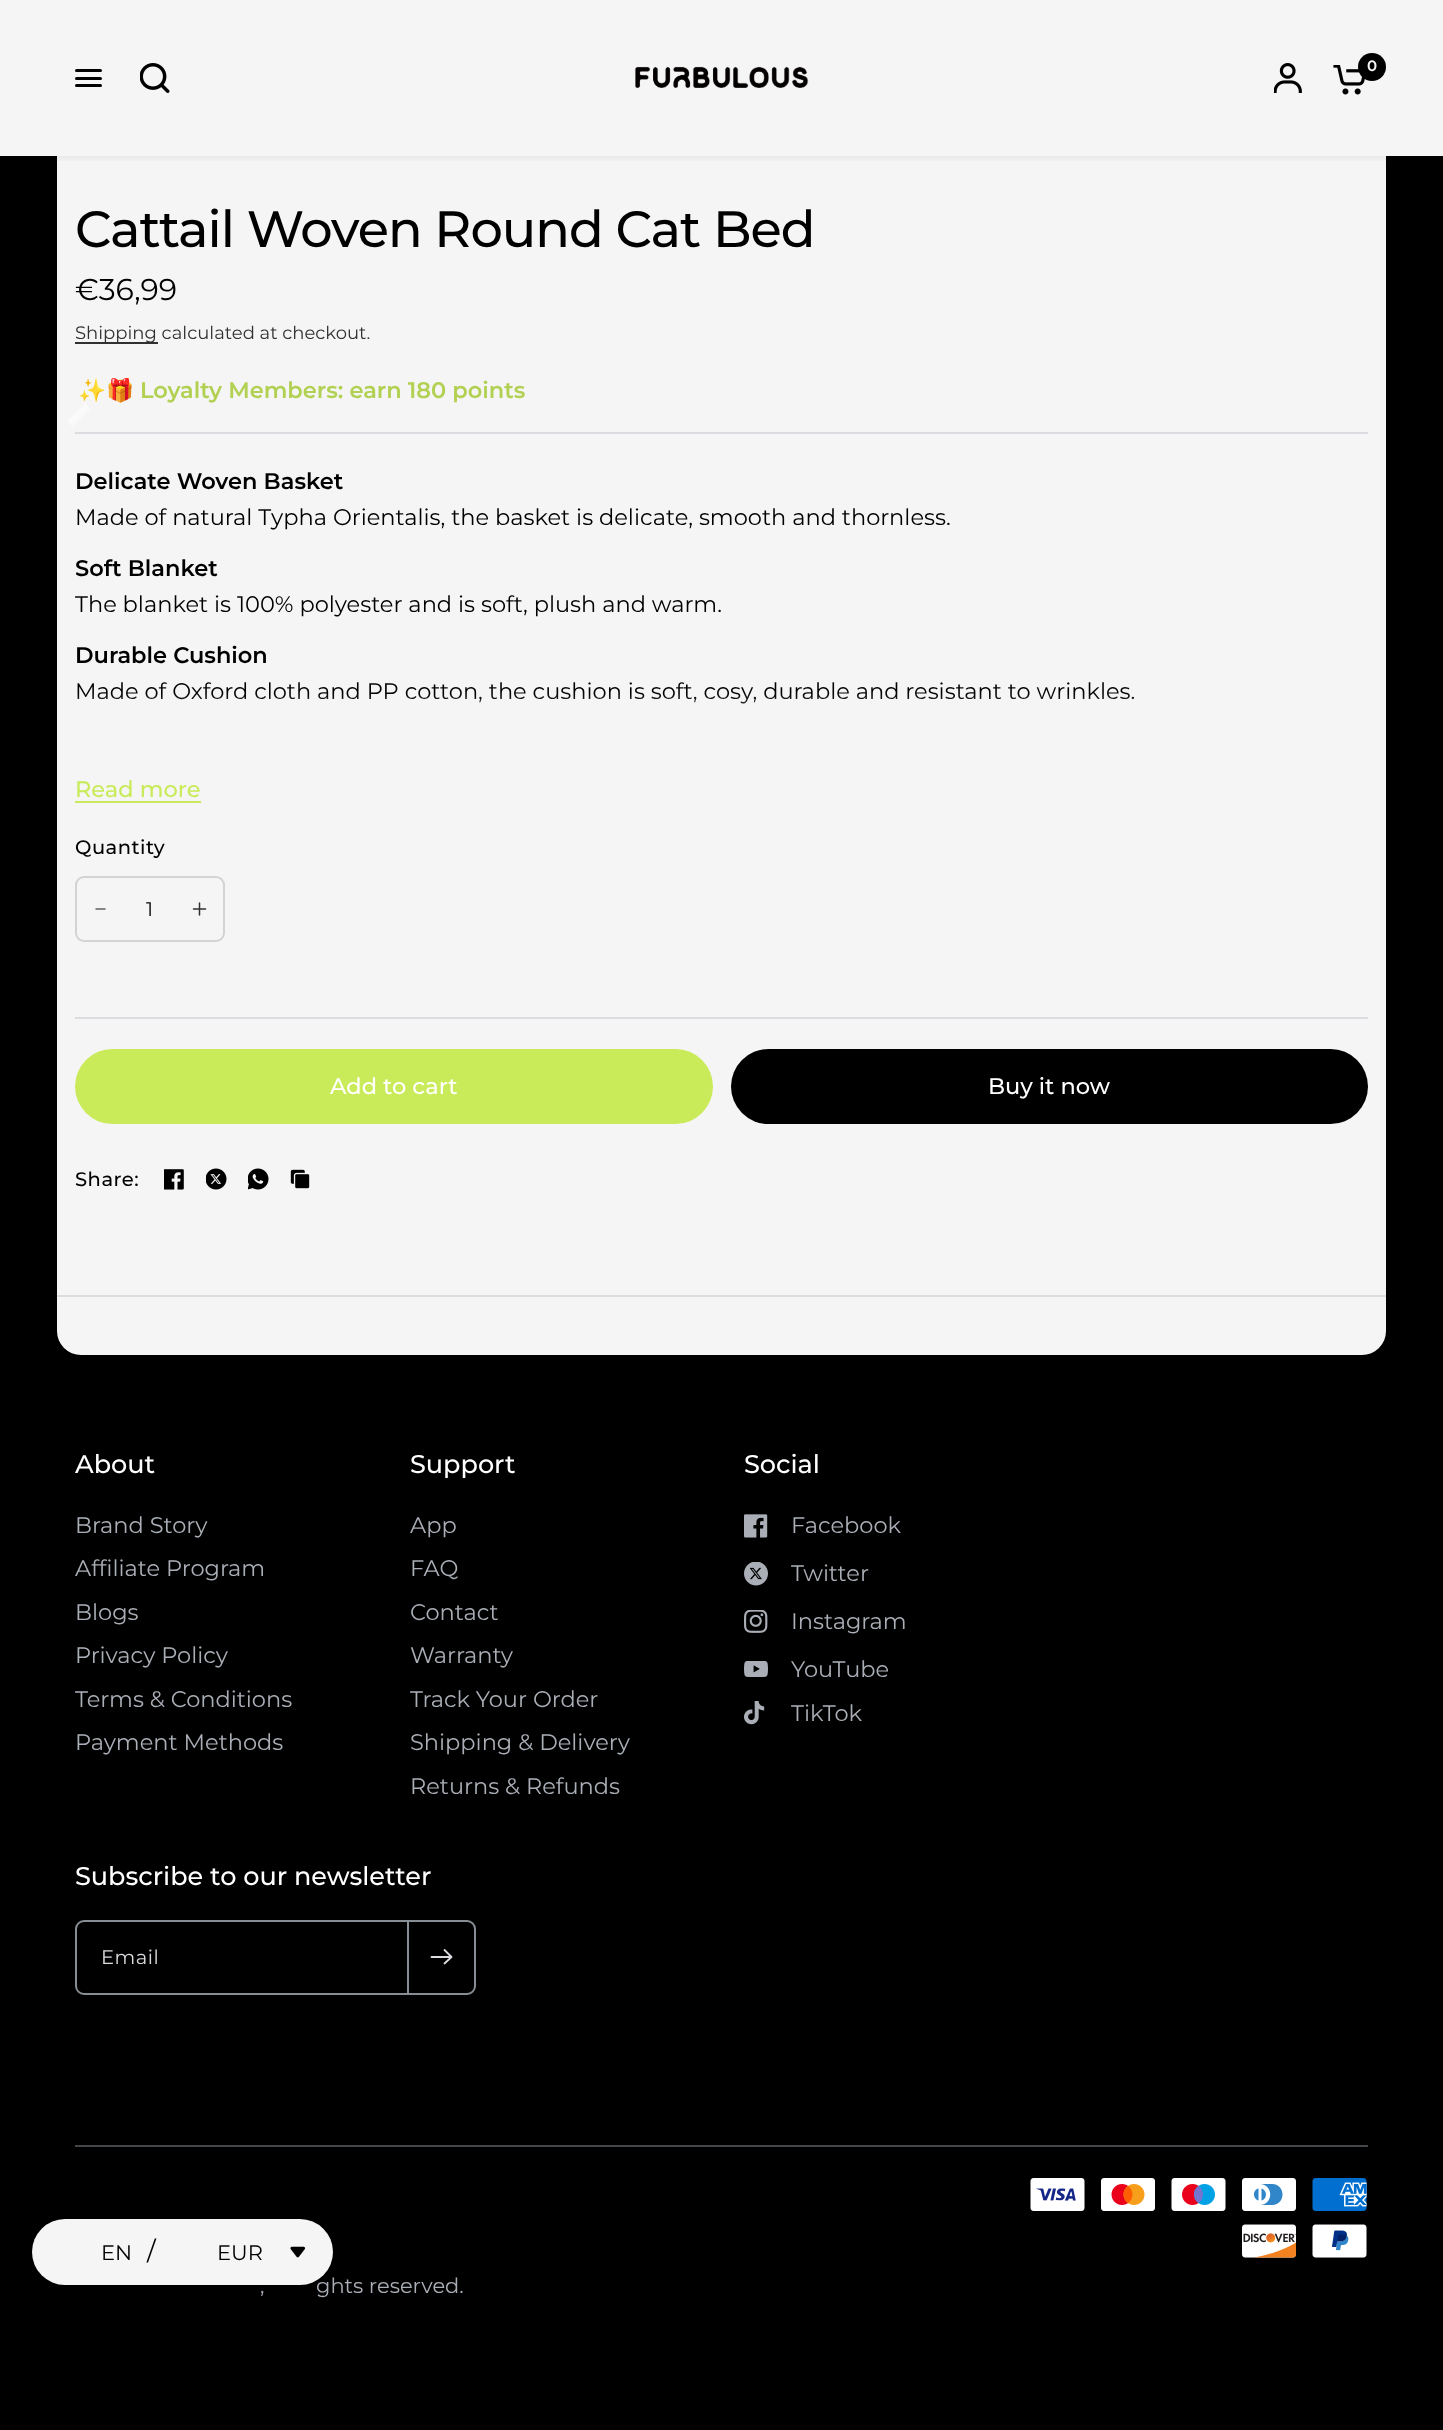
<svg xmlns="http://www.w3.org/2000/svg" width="1443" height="2430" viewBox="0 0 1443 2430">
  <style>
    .t1 { font: 600 15px Montserrat; fill: #f5f5f5; }
    .t2 { font: 500 51px Montserrat; letter-spacing: -1px; fill: #000; }
    .t3 { font: 30px Montserrat; fill: #000; }
    .t4 { font: 18px Montserrat; fill: #313131; }
    .t5 { font: bold 22.5px Noto Color Emoji; fill: #b2d051; }
    .t6 { font: 600 22.5px Montserrat; fill: #b2d051; }
    .t7 { font: 600 22.5px Montserrat; fill: #000; }
    .t8 { font: 22.5px Montserrat; fill: #000; }
    .t9 { font: 500 22.5px Montserrat; fill: #c9eb59; }
    .t10 { font: 500 19.5px Montserrat; letter-spacing: 0.5px; fill: #000; }
    .t11 { font: 19.5px Montserrat; fill: #000; }
    .t12 { font: 500 22.5px Montserrat; fill: #fff; }
    .t13 { font: 500 25.5px Montserrat; fill: #fff; }
    .t14 { font: 22.5px Montserrat; fill: #aaaeb6; }
    .t15 { font: 19.5px Montserrat; letter-spacing: 0.5px; fill: #dadce0; }
    .t16 { font: 21px Montserrat; fill: #aaaeb6; }
    .t17 { font: 21px Montserrat; fill: #000; }
    .t18 { font: 25.5px Montserrat; fill: #000; }
  </style>
  <defs>
    <clipPath id="clip1"><rect x="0" y="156" width="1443" height="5"/></clipPath>
    <linearGradient id="g1" gradientUnits="userSpaceOnUse" x1="722" y1="685" x2="722" y2="761"><stop offset="0.1" stop-color="#f5f5f5" stop-opacity="0"/><stop offset="0.9" stop-color="#f5f5f5"/></linearGradient>
  </defs>
  <rect width="100%" height="100%" fill="#000"/>
  <rect x="57" y="-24" width="1329" height="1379" rx="24" fill="#f5f5f5"/>
  <rect x="0" y="0" width="1443" height="156" fill="#f5f5f5"/>
  <g clip-path="url(#clip1)">
    <rect x="0" y="3" width="1443" height="156" fill="#0000000f" filter="blur(4px)"/>
  </g>
  <rect x="75" y="69" width="27" height="3" rx="1.5" fill="#000"/>
  <rect x="75" y="77" width="27" height="3" rx="1.5" fill="#000"/>
  <rect x="75" y="84" width="27" height="3" rx="1.5" fill="#000"/>
  <image x="140" y="63" width="30" height="30" href="images/1.png"/>
  <image x="635" y="66" width="174" height="22" href="images/2.png"/>
  <image x="1274" y="63" width="28" height="30" href="images/3.png"/>
  <image x="1333" y="65" width="32" height="30" href="images/4.png"/>
  <circle cx="1372" cy="67" r="14" fill="#000"/>
  <text x="1367" y="71" class="t1">0</text>
  <text x="75" y="247" class="t2">Cattail Woven Round Cat Bed</text>
  <text x="75" y="300" class="t3">€36,99</text>
  <rect x="75" y="342" width="83" height="2" fill="#313131"/>
  <text x="75" y="339" class="t4">Shipping calculated at checkout.</text>
  <text x="78" y="398" class="t5">✨🎁</text>
  <text x="140" y="398" class="t6">Loyalty Members: earn 180 points</text>
  <path d="M85 403L90.5 408.5L72.5 426.5L67 421.5Z" fill="#fafafa"/>
  <rect x="75" y="432" width="1293" height="2" fill="#dadce0"/>
  <text x="75" y="489" class="t7">Delicate Woven Basket</text>
  <text x="75" y="525" class="t8">Made of natural Typha Orientalis, the basket is delicate, smooth and thornless.</text>
  <text x="75" y="576" class="t7">Soft Blanket</text>
  <text x="75" y="612" class="t8">The blanket is 100% polyester and is soft, plush and warm.</text>
  <text x="75" y="663" class="t7">Durable Cushion</text>
  <text x="75" y="699" class="t8">Made of Oxford cloth and PP cotton, the cushion is soft, cosy, durable and resistant to wrinkles.</text>
  <rect x="77" y="694" width="1058" height="10" fill="url(#g1)"/>
  <text x="75" y="797" class="t9">Read more</text>
  <rect x="75" y="801" width="126" height="2" fill="#c9eb59"/>
  <text x="75" y="854" class="t10">Quantity</text>
  <rect x="76" y="877" width="148" height="64" rx="8" fill="none" stroke="#d3d3d3" stroke-width="2"/>
  <path d="M96 909H105" fill="none" stroke="#626262" stroke-width="1.5" stroke-linecap="round" stroke-linejoin="round"/>
  <text x="146" y="916" class="t11">1</text>
  <path d="M193.5 909H205.5M199.5 903V915" fill="none" stroke="#313131" stroke-width="1.5" stroke-linecap="round" stroke-linejoin="round"/>
  <rect x="75" y="1017" width="1293" height="2" fill="#dadce0"/>
  <rect x="75" y="1049" width="638" height="75" rx="37.5" fill="#c9eb59"/>
  <text x="330" y="1094" class="t12">Add to cart</text>
  <rect x="731" y="1049" width="637" height="75" rx="37.5" fill="#000"/>
  <text x="988" y="1094" class="t12">Buy it now</text>
  <text x="75" y="1186" class="t10">Share:</text>
  <image x="164" y="1169" width="20" height="21" href="images/5.png"/>
  <image x="206" y="1168" width="21" height="22" href="images/6.png"/>
  <image x="248" y="1168" width="21" height="22" href="images/7.png"/>
  <image x="290" y="1169" width="20" height="20" href="images/8.png"/>
  <rect x="57" y="1295" width="1329" height="2" fill="#dadce0"/>
  <text x="75" y="1473" class="t13">About</text>
  <text x="75" y="1533" class="t14">Brand Story</text>
  <text x="75" y="1576" class="t14">Affiliate Program</text>
  <text x="75" y="1620" class="t14">Blogs</text>
  <text x="75" y="1663" class="t14">Privacy Policy</text>
  <text x="75" y="1707" class="t14">Terms &amp; Conditions</text>
  <text x="75" y="1750" class="t14">Payment Methods</text>
  <text x="410" y="1473" class="t13">Support</text>
  <text x="410" y="1533" class="t14">App</text>
  <text x="410" y="1576" class="t14">FAQ</text>
  <text x="410" y="1620" class="t14">Contact</text>
  <text x="410" y="1663" class="t14">Warranty</text>
  <text x="410" y="1707" class="t14">Track Your Order</text>
  <text x="410" y="1750" class="t14">Shipping &amp; Delivery</text>
  <text x="410" y="1794" class="t14">Returns &amp; Refunds</text>
  <text x="744" y="1473" class="t13">Social</text>
  <image x="744" y="1514" width="24" height="24" href="images/9.png"/>
  <text x="791" y="1533" class="t14">Facebook</text>
  <image x="744" y="1562" width="24" height="24" href="images/10.png"/>
  <text x="791" y="1581" class="t14">Twitter</text>
  <image x="744" y="1610" width="24" height="23" href="images/11.png"/>
  <text x="791" y="1629" class="t14">Instagram</text>
  <image x="744" y="1661" width="24" height="16" href="images/12.png"/>
  <text x="791" y="1677" class="t14">YouTube</text>
  <image x="744" y="1701" width="21" height="24" href="images/13.png"/>
  <text x="791" y="1721" class="t14">TikTok</text>
  <text x="75" y="1885" class="t13">Subscribe to our newsletter</text>
  <rect x="76" y="1921" width="399" height="73" rx="8" fill="none" stroke="#868d94" stroke-width="2"/>
  <text x="101" y="1964" class="t15">Email</text>
  <rect x="407" y="1922" width="2" height="72" fill="#868d94"/>
  <path d="M431.5 1957H449.5M444.5 1950L451.5 1957L444.5 1963.5" fill="none" stroke="#dadce0" stroke-width="1.8" stroke-linecap="round" stroke-linejoin="round"/>
  <rect x="75" y="2145" width="1293" height="2" fill="#43474a"/>
  <image x="1030" y="2178" width="55" height="33" href="images/14.png"/>
  <image x="1101" y="2178" width="54" height="33" href="images/15.png"/>
  <image x="1171" y="2178" width="55" height="33" href="images/16.png"/>
  <image x="1242" y="2178" width="54" height="33" href="images/17.png"/>
  <image x="1312" y="2178" width="55" height="33" href="images/18.png"/>
  <image x="1242" y="2224" width="55" height="34" href="images/19.png"/>
  <image x="1312" y="2224" width="55" height="34" href="images/20.png"/>
  <text x="260" y="2293" class="t16">,</text>
  <text x="316" y="2293" class="t16">ghts reserved.</text>
  <rect x="32" y="2219" width="301" height="66" rx="33" fill="#f5f5f5"/>
  <text x="101" y="2260" class="t17">EN</text>
  <text x="147" y="2260" class="t18">/</text>
  <text x="217" y="2260" class="t17">EUR</text>
  <image x="290" y="2246" width="16" height="12" href="images/21.png"/>
</svg>
